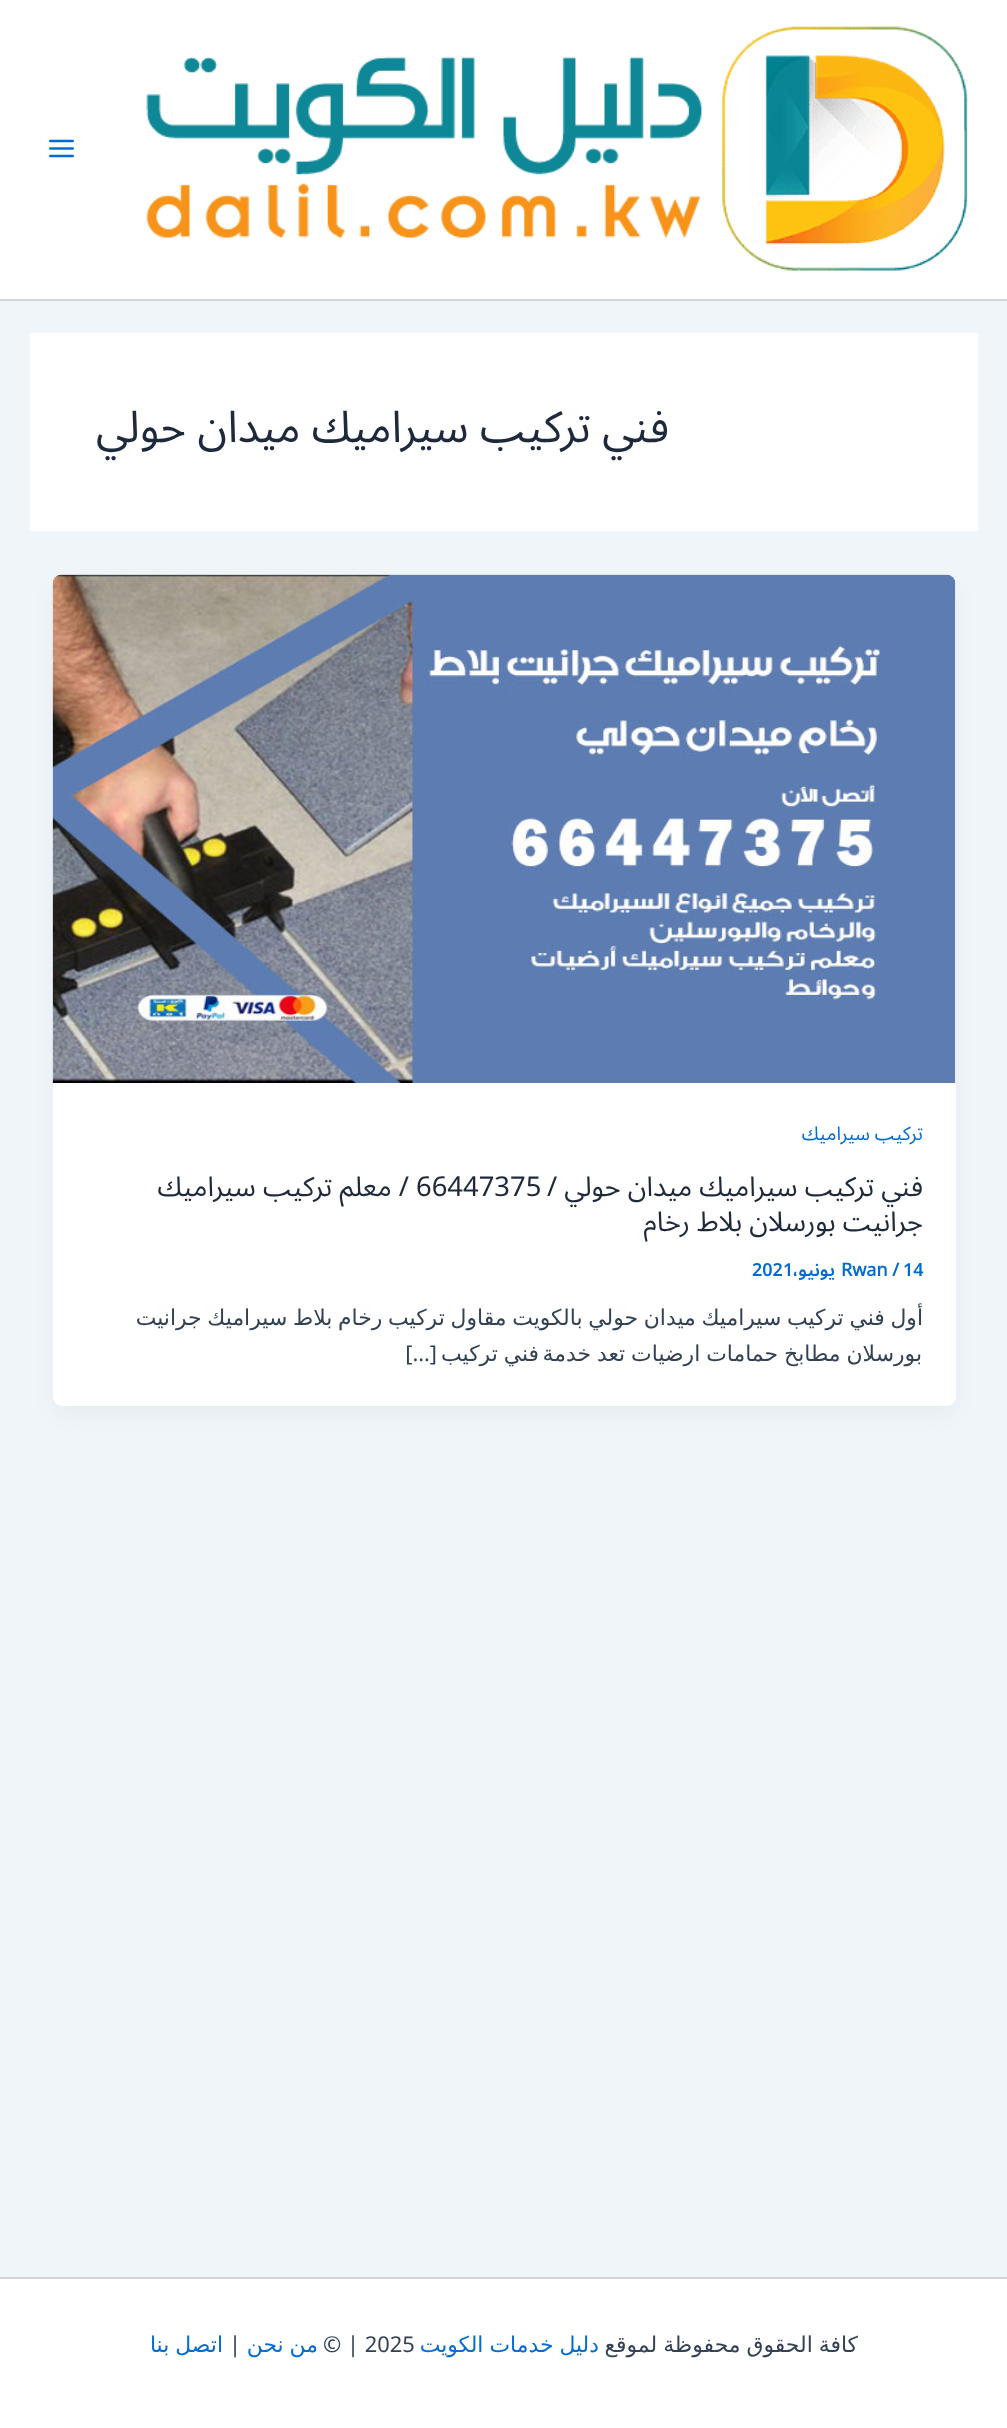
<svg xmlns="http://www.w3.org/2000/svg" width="1007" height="2428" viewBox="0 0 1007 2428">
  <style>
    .t1 { font: 43.75px Noto Sans Arabic; direction: rtl; fill: #1e293b; }
    .t2 { font: 19px Noto Sans Arabic; direction: rtl; fill: #046bd2; }
    .t3 { font: 27.4px Noto Sans Arabic; direction: rtl; fill: #1e293b; }
    .t4 { font: 27.4px Noto Sans Arabic; fill: #1e293b; }
    .t5 { font: 600 18px Noto Sans Arabic; fill: #046bd2; }
    .t6 { font: bold 18px Noto Sans Arabic; fill: #046bd2; }
    .t7 { font: 600 18px Noto Sans Arabic; direction: rtl; fill: #046bd2; }
    .t8 { font: 21.9px DejaVu Sans; direction: rtl; fill: #334155; }
    .t9 { font: 21.9px 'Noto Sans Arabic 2'; direction: rtl; fill: #334155; }
    .t10 { font: 21.9px DejaVu Sans; direction: rtl; fill: #046bd2; }
    .t11 { font: 21.9px 'Noto Sans Arabic 2'; fill: #334155; }
  </style>
  <rect width="100%" height="100%" fill="#f0f5fa"/>
  <rect x="0" y="0" width="1007" height="299" fill="#fff"/>
  <rect x="0" y="299" width="1007" height="2" fill="#d1d5db"/>
  <image x="146" y="26" width="822" height="246" href="images/1.png"/>
  <image x="49" y="139" width="25" height="19" href="images/2.png"/>
  <rect x="30" y="333" width="948" height="198" fill="#fff"/>
  <text x="669" y="442" class="t1">فني تركيب سيراميك ميدان حولي</text>
  <rect x="56" y="587" width="897" height="825" rx="6" fill="#1018280d" filter="blur(11px)"/>
  <rect x="53" y="575" width="903" height="831" rx="9" fill="#fff"/>
  <image x="52" y="574" width="904" height="509" href="images/3.png"/>
  <text x="923" y="1140" class="t2">تركيب سيراميك</text>
  <text x="923" y="1196" class="t3">فني تركيب سيراميك ميدان حولي /</text>
  <text x="416" y="1196" class="t4">66447375</text>
  <text x="409" y="1196" class="t3">/ معلم تركيب سيراميك</text>
  <text x="923" y="1231" class="t3">جرانيت بورسلان بلاط رخام</text>
  <text x="903" y="1276" class="t5">14</text>
  <text x="841" y="1276" class="t6">Rwan /</text>
  <text x="835" y="1276" class="t7">يونيو،</text>
  <text x="752" y="1276" class="t5">2021</text>
  <text x="923" y="1325" word-spacing="-1.25" class="t8">أول فني تركيب سيراميك ميدان حولي بالكويت مقاول تركيب رخام بلاط سيراميك جرانيت</text>
  <text x="922" y="1361" word-spacing="-1" class="t8">بورسلان مطابخ حمامات ارضيات تعد خدمة</text>
  <text x="539" y="1361" word-spacing="-1" class="t8">فني تركيب</text>
  <text x="437" y="1361" class="t9">[…]</text>
  <rect x="0" y="2279" width="1007" height="149" fill="#fff"/>
  <rect x="0" y="2277" width="1007" height="2" fill="#d1d5db"/>
  <text x="858" y="2352" word-spacing="-1" class="t8">كافة الحقوق محفوظة لموقع</text>
  <text x="599" y="2352" word-spacing="-1" class="t10">دليل خدمات الكويت</text>
  <text x="323" y="2352" class="t11">© | 2025</text>
  <text x="318" y="2352" word-spacing="-1" class="t10">من نحن</text>
  <text x="229" y="2352" class="t11">|</text>
  <text x="223" y="2352" word-spacing="-1" class="t10">اتصل بنا</text>
</svg>
